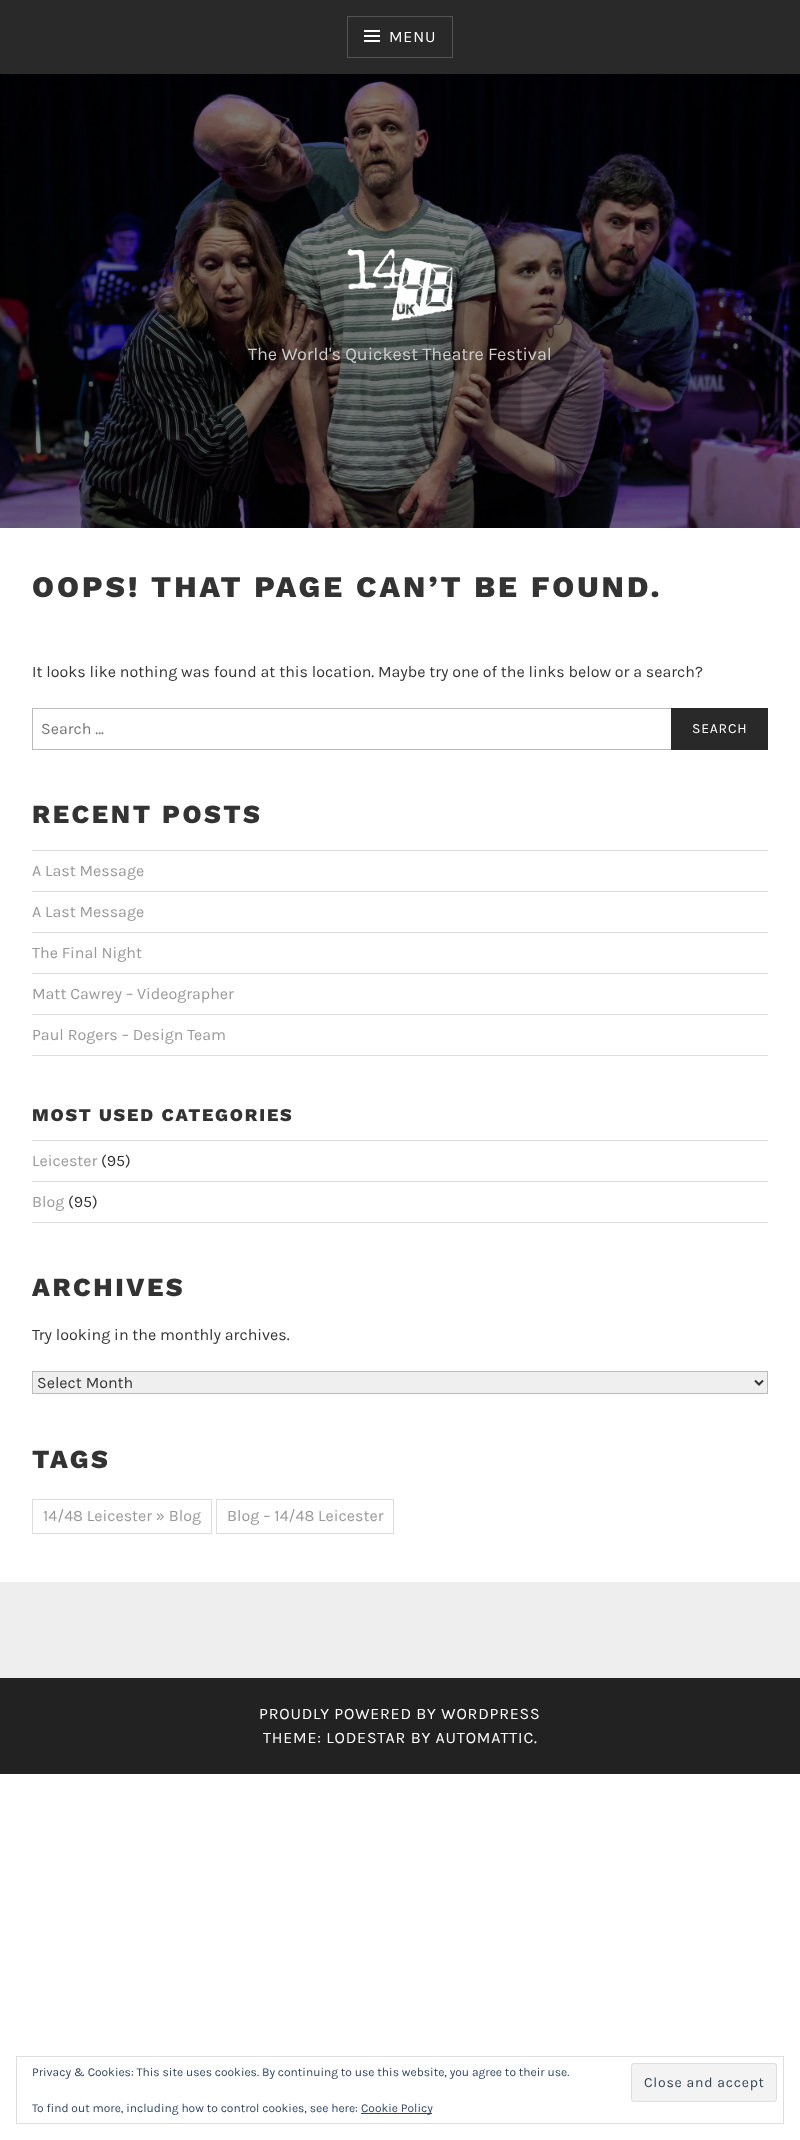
<svg xmlns="http://www.w3.org/2000/svg" width="800" height="2140" viewBox="0 0 800 2140">
  <style>
    .t1 { font: 16px Karla; letter-spacing: 0.8px; fill: #fff; }
    .t2 { font: 18px Karla; fill: #ccc; }
    .t3 { font: 800 30px Work Sans; letter-spacing: 3px; fill: #333; }
    .t4 { font: 16px Karla; fill: #333; }
    .t5 { font: 16px Karla; fill: #757575; }
    .t6 { font: 14px Karla; letter-spacing: 0.75px; fill: #fff; }
    .t7 { font: 800 26px Work Sans; letter-spacing: 2.6px; fill: #333; }
    .t8 { font: 16px Karla; fill: #999; }
    .t9 { font: 800 18px Work Sans; letter-spacing: 1.8px; fill: #333; }
    .t10 { font: 12px Karla; fill: #2e4467; }
    .t11 { font: 14px Karla; letter-spacing: 0.75px; fill: #2e4453; }
  </style>
  <rect width="100%" height="100%" fill="#fff"/>
  <rect x="0" y="0" width="800" height="74" fill="#29292a"/>
  <rect x="347.5" y="16.5" width="105" height="41" fill="none" stroke="#545455"/>
  <image x="364" y="30" width="16" height="12" href="images/1.png"/>
  <text x="389" y="42" class="t1">MENU</text>
  <image x="0" y="74" width="800" height="454" href="images/2.png"/>
  <image x="347" y="248" width="106" height="74" href="images/3.png"/>
  <text x="248" y="360" class="t2">The World's Quickest Theatre Festival</text>
  <text x="32" y="597" class="t3">OOPS! THAT PAGE CAN’T BE FOUND.</text>
  <text x="32" y="677" class="t4">It looks like nothing was found at this location. Maybe try one of the links below or a search?</text>
  <rect x="32.5" y="708.5" width="735" height="41" fill="none" stroke="#bbb"/>
  <text x="41" y="734" class="t5">Search …</text>
  <rect x="671" y="708" width="97" height="42" fill="#29292a"/>
  <text x="692" y="733" class="t6">SEARCH</text>
  <text x="32" y="823" class="t7">RECENT POSTS</text>
  <rect x="32" y="850" width="736" height="1" fill="#ddd"/>
  <rect x="32" y="891" width="736" height="1" fill="#ddd"/>
  <text x="32" y="876" class="t8">A Last Message</text>
  <rect x="32" y="932" width="736" height="1" fill="#ddd"/>
  <text x="32" y="917" class="t8">A Last Message</text>
  <rect x="32" y="973" width="736" height="1" fill="#ddd"/>
  <text x="32" y="958" class="t8">The Final Night</text>
  <rect x="32" y="1014" width="736" height="1" fill="#ddd"/>
  <text x="32" y="999" class="t8">Matt Cawrey – Videographer</text>
  <rect x="32" y="1055" width="736" height="1" fill="#ddd"/>
  <text x="32" y="1040" class="t8">Paul Rogers – Design Team</text>
  <text x="32" y="1121" class="t9">MOST USED CATEGORIES</text>
  <rect x="32" y="1140" width="736" height="1" fill="#ddd"/>
  <rect x="32" y="1181" width="736" height="1" fill="#ddd"/>
  <text x="32" y="1166" class="t8">Leicester</text>
  <text x="101" y="1166" class="t4">(95)</text>
  <rect x="32" y="1222" width="736" height="1" fill="#ddd"/>
  <text x="32" y="1207" class="t8">Blog</text>
  <text x="68" y="1207" class="t4">(95)</text>
  <text x="32" y="1296" class="t7">ARCHIVES</text>
  <text x="32" y="1340" class="t4">Try looking in the monthly archives.</text>
  <rect x="32.5" y="1371.5" width="735" height="22" fill="#efefef" stroke="#bbb"/>
  <path d="M755 1380.5L759 1384.5L763 1380.5" fill="none" stroke="#333" stroke-width="2"/>
  <text x="37" y="1388" class="t4">Select Month</text>
  <text x="32" y="1468" class="t7">TAGS</text>
  <rect x="32.5" y="1499.5" width="179" height="34" fill="none" stroke="#ddd"/>
  <text x="43" y="1521" class="t8">14/48 Leicester » Blog</text>
  <rect x="216.5" y="1499.5" width="177" height="34" fill="none" stroke="#ddd"/>
  <text x="227" y="1521" class="t8">Blog – 14/48 Leicester</text>
  <rect x="0" y="1582" width="800" height="96" fill="#eee"/>
  <rect x="0" y="1678" width="800" height="96" fill="#222"/>
  <text x="259" y="1719" class="t1">PROUDLY POWERED BY WORDPRESS</text>
  <text x="263" y="1743" class="t1">THEME: LODESTAR BY AUTOMATTIC.</text>
  <rect x="16.5" y="2056.5" width="767" height="67" fill="none" stroke="#dedede"/>
  <text x="32" y="2076" class="t10">Privacy &amp; Cookies: This site uses cookies. By continuing to use this website, you agree to their use.</text>
  <rect x="631.5" y="2063.5" width="145" height="38" rx="2.5" fill="#f3f3f3" stroke="#dedede"/>
  <text x="644" y="2087" class="t11">Close and accept</text>
  <text x="32" y="2112" class="t10">To find out more, including how to control cookies, see here:</text>
  <rect x="361" y="2113" width="71" height="1" fill="#2e4467"/>
  <text x="361" y="2112" class="t10">Cookie Policy</text>
</svg>
